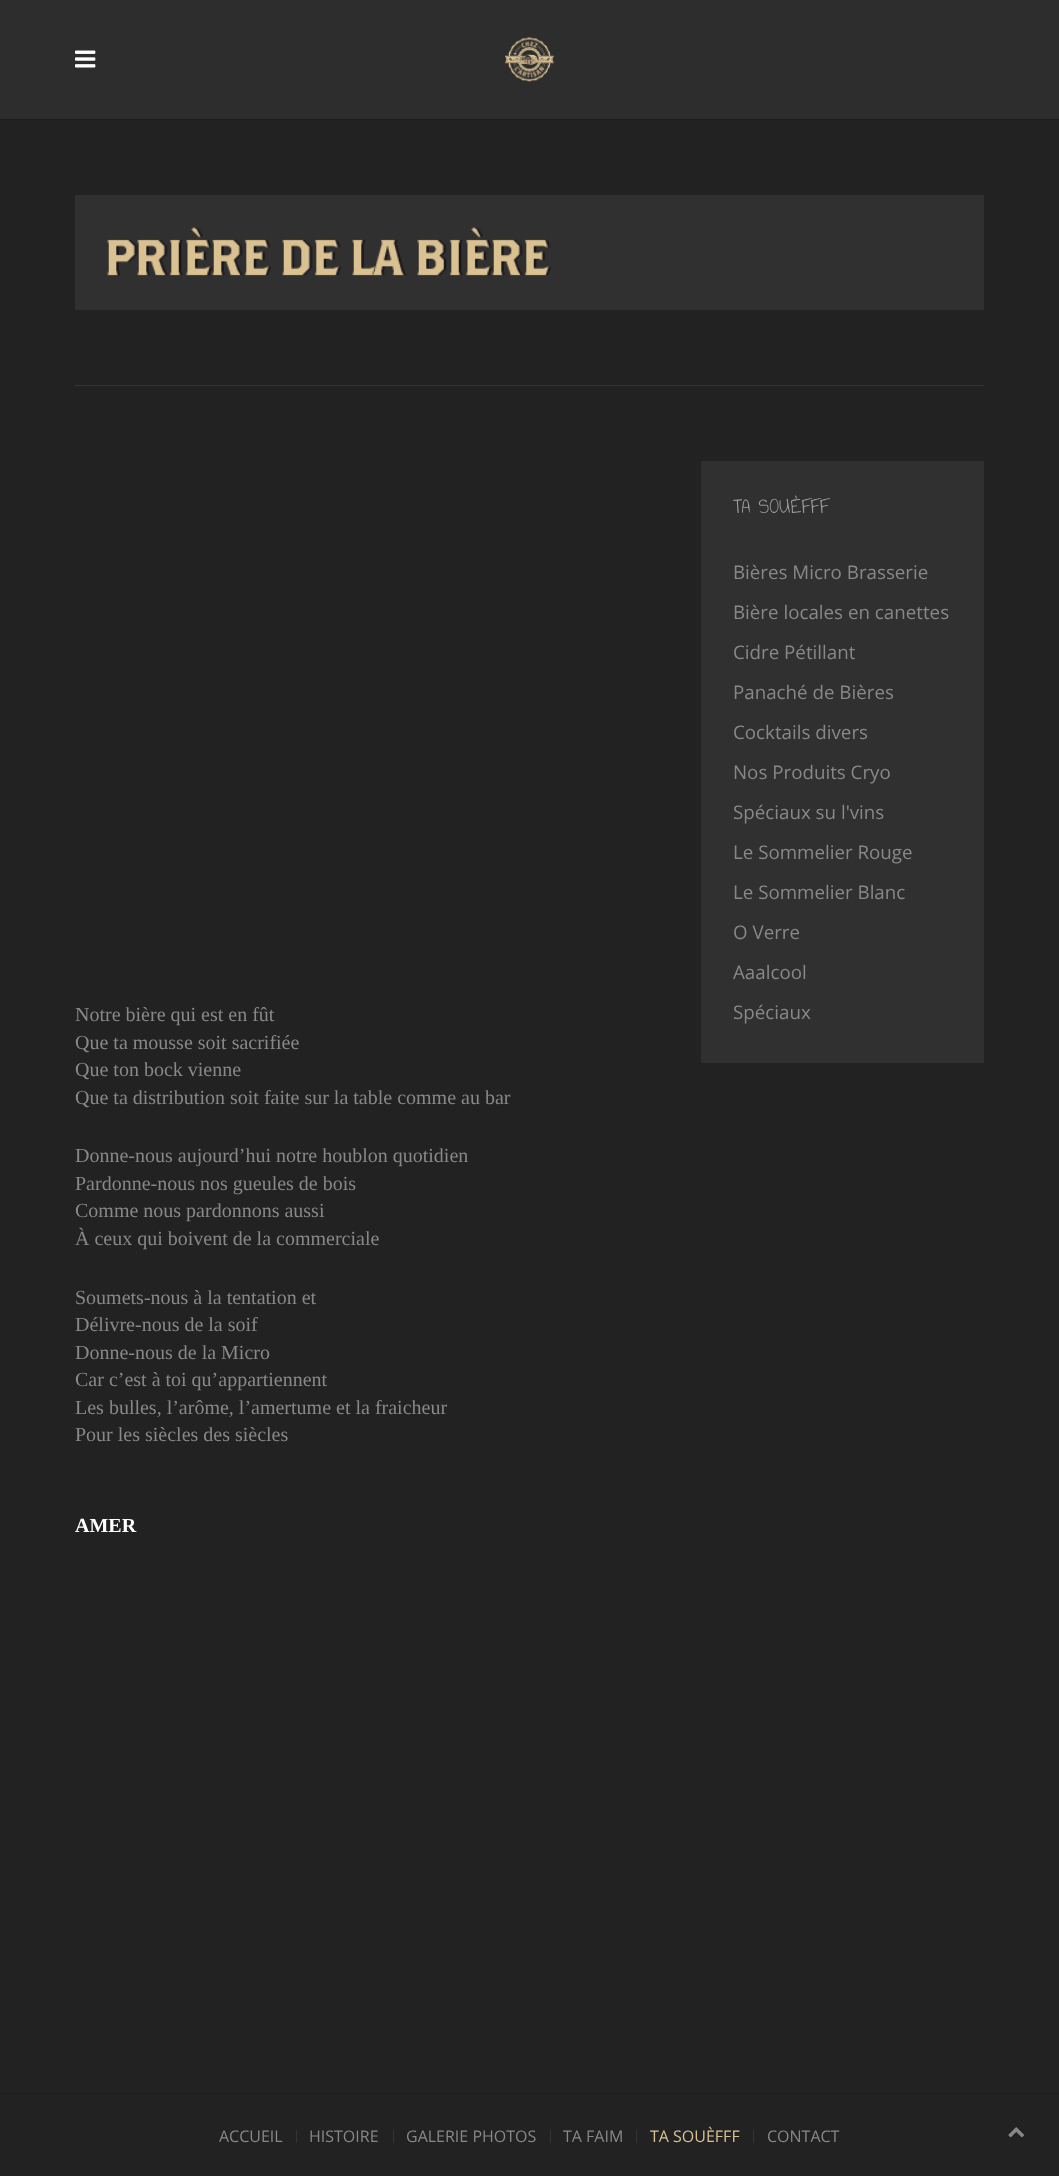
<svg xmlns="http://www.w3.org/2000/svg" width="1059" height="2176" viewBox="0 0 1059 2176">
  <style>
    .t1 { font: 22.5px Annie Use Your Telescope; fill: #999; }
    .t2 { font: 18.75px Open Sans; fill: #888; }
    .t3 { font: 20px Liberation Serif; fill: #888; }
    .t4 { font: bold 20px Liberation Serif; fill: #fff; }
    .t5 { font: 16px Open Sans; fill: #888; }
    .t6 { font: 16px Open Sans; fill: #dac192; }
  </style>
  <rect width="100%" height="100%" fill="#222"/>
  <rect x="0" y="0" width="1059" height="119" fill="#2d2d2d"/>
  <rect x="0" y="119" width="1059" height="1" fill="#1c1c1c"/>
  <image x="75" y="50" width="21" height="18" href="images/1.png"/>
  <image x="505" y="37" width="49" height="45" href="images/2.png"/>
  <rect x="75" y="195" width="909" height="115" rx="1" fill="#303030"/>
  <image x="107" y="227" width="444" height="49" href="images/3.png"/>
  <rect x="75" y="385" width="909" height="1" fill="#343434"/>
  <rect x="701" y="461" width="283" height="602" rx="1" fill="#303030"/>
  <text x="733" y="513" class="t1">TA SOUÈFFF</text>
  <text x="733" y="579" class="t2">Bières Micro Brasserie</text>
  <text x="733" y="619" class="t2">Bière locales en canettes</text>
  <text x="733" y="659" class="t2">Cidre Pétillant</text>
  <text x="733" y="699" class="t2">Panaché de Bières</text>
  <text x="733" y="739" class="t2">Cocktails divers</text>
  <text x="733" y="779" class="t2">Nos Produits Cryo</text>
  <text x="733" y="819" class="t2">Spéciaux su l'vins</text>
  <text x="733" y="859" class="t2">Le Sommelier Rouge</text>
  <text x="733" y="899" class="t2">Le Sommelier Blanc</text>
  <text x="733" y="939" class="t2">O Verre</text>
  <text x="733" y="979" class="t2">Aaalcool</text>
  <text x="733" y="1019" class="t2">Spéciaux</text>
  <text x="75" y="1021" class="t3">Notre bière qui est en fût</text>
  <text x="75" y="1049" class="t3">Que ta mousse soit sacrifiée</text>
  <text x="75" y="1076" class="t3">Que ton bock vienne</text>
  <text x="75" y="1104" class="t3">Que ta distribution soit faite sur la table comme au bar</text>
  <text x="75" y="1162" class="t3">Donne-nous aujourd’hui notre houblon quotidien</text>
  <text x="75" y="1190" class="t3">Pardonne-nous nos gueules de bois</text>
  <text x="75" y="1217" class="t3">Comme nous pardonnons aussi</text>
  <text x="75" y="1245" class="t3">À ceux qui boivent de la commerciale</text>
  <text x="75" y="1304" class="t3">Soumets-nous à la tentation et</text>
  <text x="75" y="1331" class="t3">Délivre-nous de la soif</text>
  <text x="75" y="1359" class="t3">Donne-nous de la Micro</text>
  <text x="75" y="1386" class="t3">Car c’est à toi qu’appartiennent</text>
  <text x="75" y="1414" class="t3">Les bulles, l’arôme, l’amertume et la fraicheur</text>
  <text x="75" y="1441" class="t3">Pour les siècles des siècles</text>
  <text x="75" y="1532" class="t4">AMER</text>
  <rect x="0" y="2093" width="1059" height="1" fill="#1c1c1c"/>
  <text x="219" y="2142" class="t5">ACCUEIL</text>
  <rect x="296" y="2130" width="1" height="13" fill="#343434"/>
  <text x="309" y="2142" class="t5">HISTOIRE</text>
  <rect x="393" y="2130" width="1" height="13" fill="#343434"/>
  <text x="406" y="2142" class="t5">GALERIE PHOTOS</text>
  <rect x="550" y="2130" width="1" height="13" fill="#343434"/>
  <text x="563" y="2142" class="t5">TA FAIM</text>
  <rect x="636" y="2130" width="1" height="13" fill="#343434"/>
  <text x="650" y="2142" class="t6">TA SOUÈFFF</text>
  <rect x="753" y="2130" width="1" height="13" fill="#343434"/>
  <text x="767" y="2142" class="t5">CONTACT</text>
  <image x="1008" y="2127" width="16" height="11" href="images/4.png"/>
</svg>
